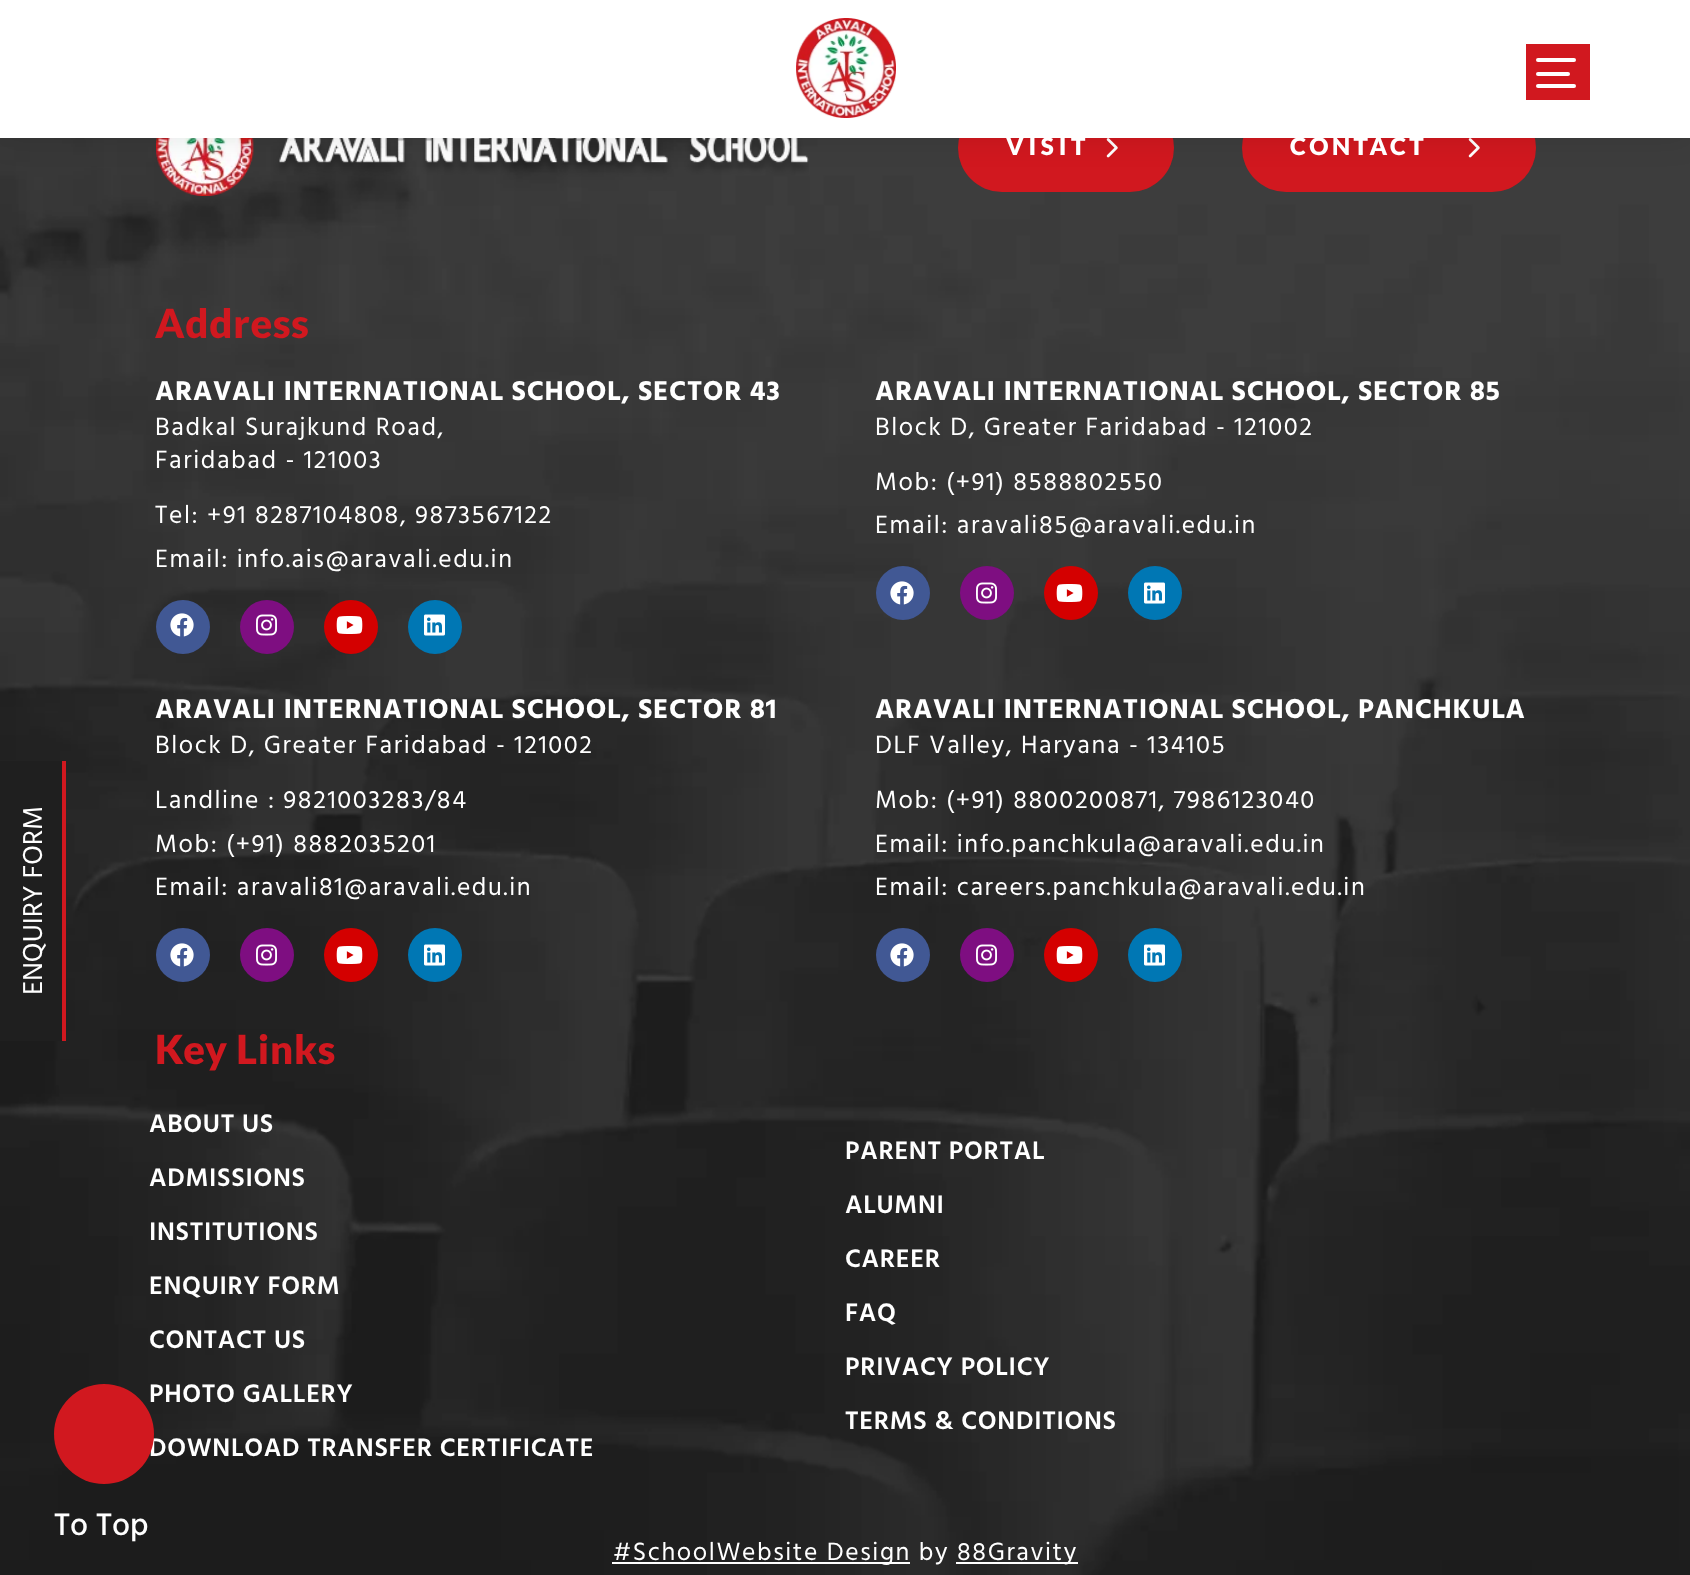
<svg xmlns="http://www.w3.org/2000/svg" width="1690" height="1575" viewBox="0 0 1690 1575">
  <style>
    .t1 { font: 28px Hind Guntur; fill: #fff; }
    .t2 { font: 900 24px Lato; letter-spacing: 4.75px; fill: #fff; }
    .t3 { font: 900 24px Lato; letter-spacing: 3.5px; fill: #fff; }
    .t4 { font: 900 40px Lato; letter-spacing: 0.75px; fill: #d1181f; }
    .t5 { font: bold 28px Hind Guntur; letter-spacing: 0.7px; fill: #fff; }
    .t6 { font: 25.6px Hind Guntur; letter-spacing: 1.6px; fill: #fff; }
    .t7 { font: 600 26px Hind Guntur; letter-spacing: 0.7px; fill: #fff; }
    .t8 { font: 500 32px Hind Guntur; fill: #fff; }
  </style>
  <rect width="100%" height="100%" fill="#fff"/>
  <image x="0" y="138" width="1690" height="1437" href="images/2.png"/>
  <image x="156" y="138" width="653" height="58" href="images/3.png"/>
  <rect x="958" y="104" width="216" height="88" rx="44" fill="#d1181f"/>
  <image x="1106" y="138" width="12" height="20" href="images/4.png"/>
  <rect x="1242" y="104" width="294" height="88" rx="44" fill="#d1181f"/>
  <image x="1468" y="138" width="12" height="20" href="images/4.png"/>
  <rect x="0" y="0" width="1690" height="138" fill="#0000001a" filter="blur(15px)"/>
  <rect x="0" y="0" width="1690" height="138" fill="#fff"/>
  <image x="796" y="18" width="100" height="100" href="images/1.png"/>
  <rect x="1526" y="44" width="64" height="56" fill="#d1181f"/>
  <rect x="1536" y="58" width="40" height="4" rx="2" fill="#fff"/>
  <rect x="1536" y="72" width="34" height="4" rx="2" fill="#fff"/>
  <rect x="1536" y="84" width="40" height="4" rx="2" fill="#fff"/>
  <rect x="0" y="761" width="62" height="280" fill="#1f1f1f"/>
  <rect x="62" y="761" width="4" height="280" fill="#d1181f"/>
  <text x="42" y="995" transform="rotate(-90 42 995)" class="t1">ENQUIRY FORM</text>
  <text x="1006" y="155" class="t2">VISIT</text>
  <text x="1290" y="155" class="t3">CONTACT</text>
  <text x="155" y="338" class="t4">Address</text>
  <text x="155" y="400" class="t5">ARAVALI INTERNATIONAL SCHOOL, SECTOR 43</text>
  <text x="155" y="435" class="t6">Badkal Surajkund Road,</text>
  <text x="155" y="468" class="t6">Faridabad - 121003</text>
  <text x="155" y="523" class="t6">Tel: +91 8287104808, 9873567122</text>
  <text x="155" y="567" class="t6">Email: info.ais@aravali.edu.in</text>
  <circle cx="183" cy="627" r="27" fill="#415894"/>
  <image x="170" y="613" width="24" height="24" href="images/5.png"/>
  <circle cx="267" cy="627" r="27" fill="#7e0e81"/>
  <image x="256" y="614" width="21" height="22" href="images/6.png"/>
  <circle cx="351" cy="627" r="27" fill="#d40000"/>
  <image x="336" y="616" width="27" height="18" href="images/7.png"/>
  <circle cx="435" cy="627" r="27" fill="#0077b4"/>
  <image x="424" y="614" width="21" height="22" href="images/8.png"/>
  <text x="875" y="400" class="t5">ARAVALI INTERNATIONAL SCHOOL, SECTOR 85</text>
  <text x="875" y="435" class="t6">Block D, Greater Faridabad - 121002</text>
  <text x="875" y="490" class="t6">Mob: (+91) 8588802550</text>
  <text x="875" y="533" class="t6">Email: aravali85@aravali.edu.in</text>
  <circle cx="903" cy="593" r="27" fill="#415894"/>
  <image x="890" y="581" width="24" height="24" href="images/5.png"/>
  <circle cx="987" cy="593" r="27" fill="#7e0e81"/>
  <image x="976" y="582" width="21" height="22" href="images/6.png"/>
  <circle cx="1071" cy="593" r="27" fill="#d40000"/>
  <image x="1056" y="584" width="27" height="18" href="images/7.png"/>
  <circle cx="1155" cy="593" r="27" fill="#0077b4"/>
  <image x="1144" y="582" width="21" height="22" href="images/8.png"/>
  <text x="155" y="718" class="t5">ARAVALI INTERNATIONAL SCHOOL, SECTOR 81</text>
  <text x="155" y="753" class="t6">Block D, Greater Faridabad - 121002</text>
  <text x="155" y="808" class="t6">Landline : 9821003283/84</text>
  <text x="155" y="852" class="t6">Mob: (+91) 8882035201</text>
  <text x="155" y="895" class="t6">Email: aravali81@aravali.edu.in</text>
  <circle cx="183" cy="955" r="27" fill="#415894"/>
  <image x="170" y="943" width="24" height="24" href="images/5.png"/>
  <circle cx="267" cy="955" r="27" fill="#7e0e81"/>
  <image x="256" y="944" width="21" height="22" href="images/6.png"/>
  <circle cx="351" cy="955" r="27" fill="#d40000"/>
  <image x="336" y="946" width="27" height="18" href="images/7.png"/>
  <circle cx="435" cy="955" r="27" fill="#0077b4"/>
  <image x="424" y="944" width="21" height="22" href="images/8.png"/>
  <text x="875" y="718" class="t5">ARAVALI INTERNATIONAL SCHOOL, PANCHKULA</text>
  <text x="875" y="753" class="t6">DLF Valley, Haryana - 134105</text>
  <text x="875" y="808" class="t6">Mob: (+91) 8800200871, 7986123040</text>
  <text x="875" y="852" class="t6">Email: info.panchkula@aravali.edu.in</text>
  <text x="875" y="895" class="t6">Email: careers.panchkula@aravali.edu.in</text>
  <circle cx="903" cy="955" r="27" fill="#415894"/>
  <image x="890" y="943" width="24" height="24" href="images/5.png"/>
  <circle cx="987" cy="955" r="27" fill="#7e0e81"/>
  <image x="976" y="944" width="21" height="22" href="images/6.png"/>
  <circle cx="1071" cy="955" r="27" fill="#d40000"/>
  <image x="1056" y="946" width="27" height="18" href="images/7.png"/>
  <circle cx="1155" cy="955" r="27" fill="#0077b4"/>
  <image x="1144" y="944" width="21" height="22" href="images/8.png"/>
  <text x="155" y="1064" class="t4">Key Links</text>
  <text x="149" y="1132" class="t7">ABOUT US</text>
  <text x="149" y="1186" class="t7">ADMISSIONS</text>
  <text x="149" y="1240" class="t7">INSTITUTIONS</text>
  <text x="149" y="1294" class="t7">ENQUIRY FORM</text>
  <text x="149" y="1348" class="t7">CONTACT US</text>
  <text x="149" y="1402" class="t7">PHOTO GALLERY</text>
  <text x="149" y="1456" class="t7">DOWNLOAD TRANSFER CERTIFICATE</text>
  <text x="845" y="1159" class="t7">PARENT PORTAL</text>
  <text x="845" y="1213" class="t7">ALUMNI</text>
  <text x="845" y="1267" class="t7">CAREER</text>
  <text x="845" y="1321" class="t7">FAQ</text>
  <text x="845" y="1375" class="t7">PRIVACY POLICY</text>
  <text x="845" y="1429" class="t7">TERMS &amp; CONDITIONS</text>
  <circle cx="104" cy="1434" r="50" fill="#d1181f"/>
  <text x="54" y="1535" class="t8">To Top</text>
  <rect x="612" y="1562" width="298" height="2" fill="#fff"/>
  <text x="613" y="1560" class="t6">#SchoolWebsite Design by</text>
  <rect x="956" y="1562" width="122" height="2" fill="#fff"/>
  <text x="957" y="1560" class="t6">88Gravity</text>
</svg>
